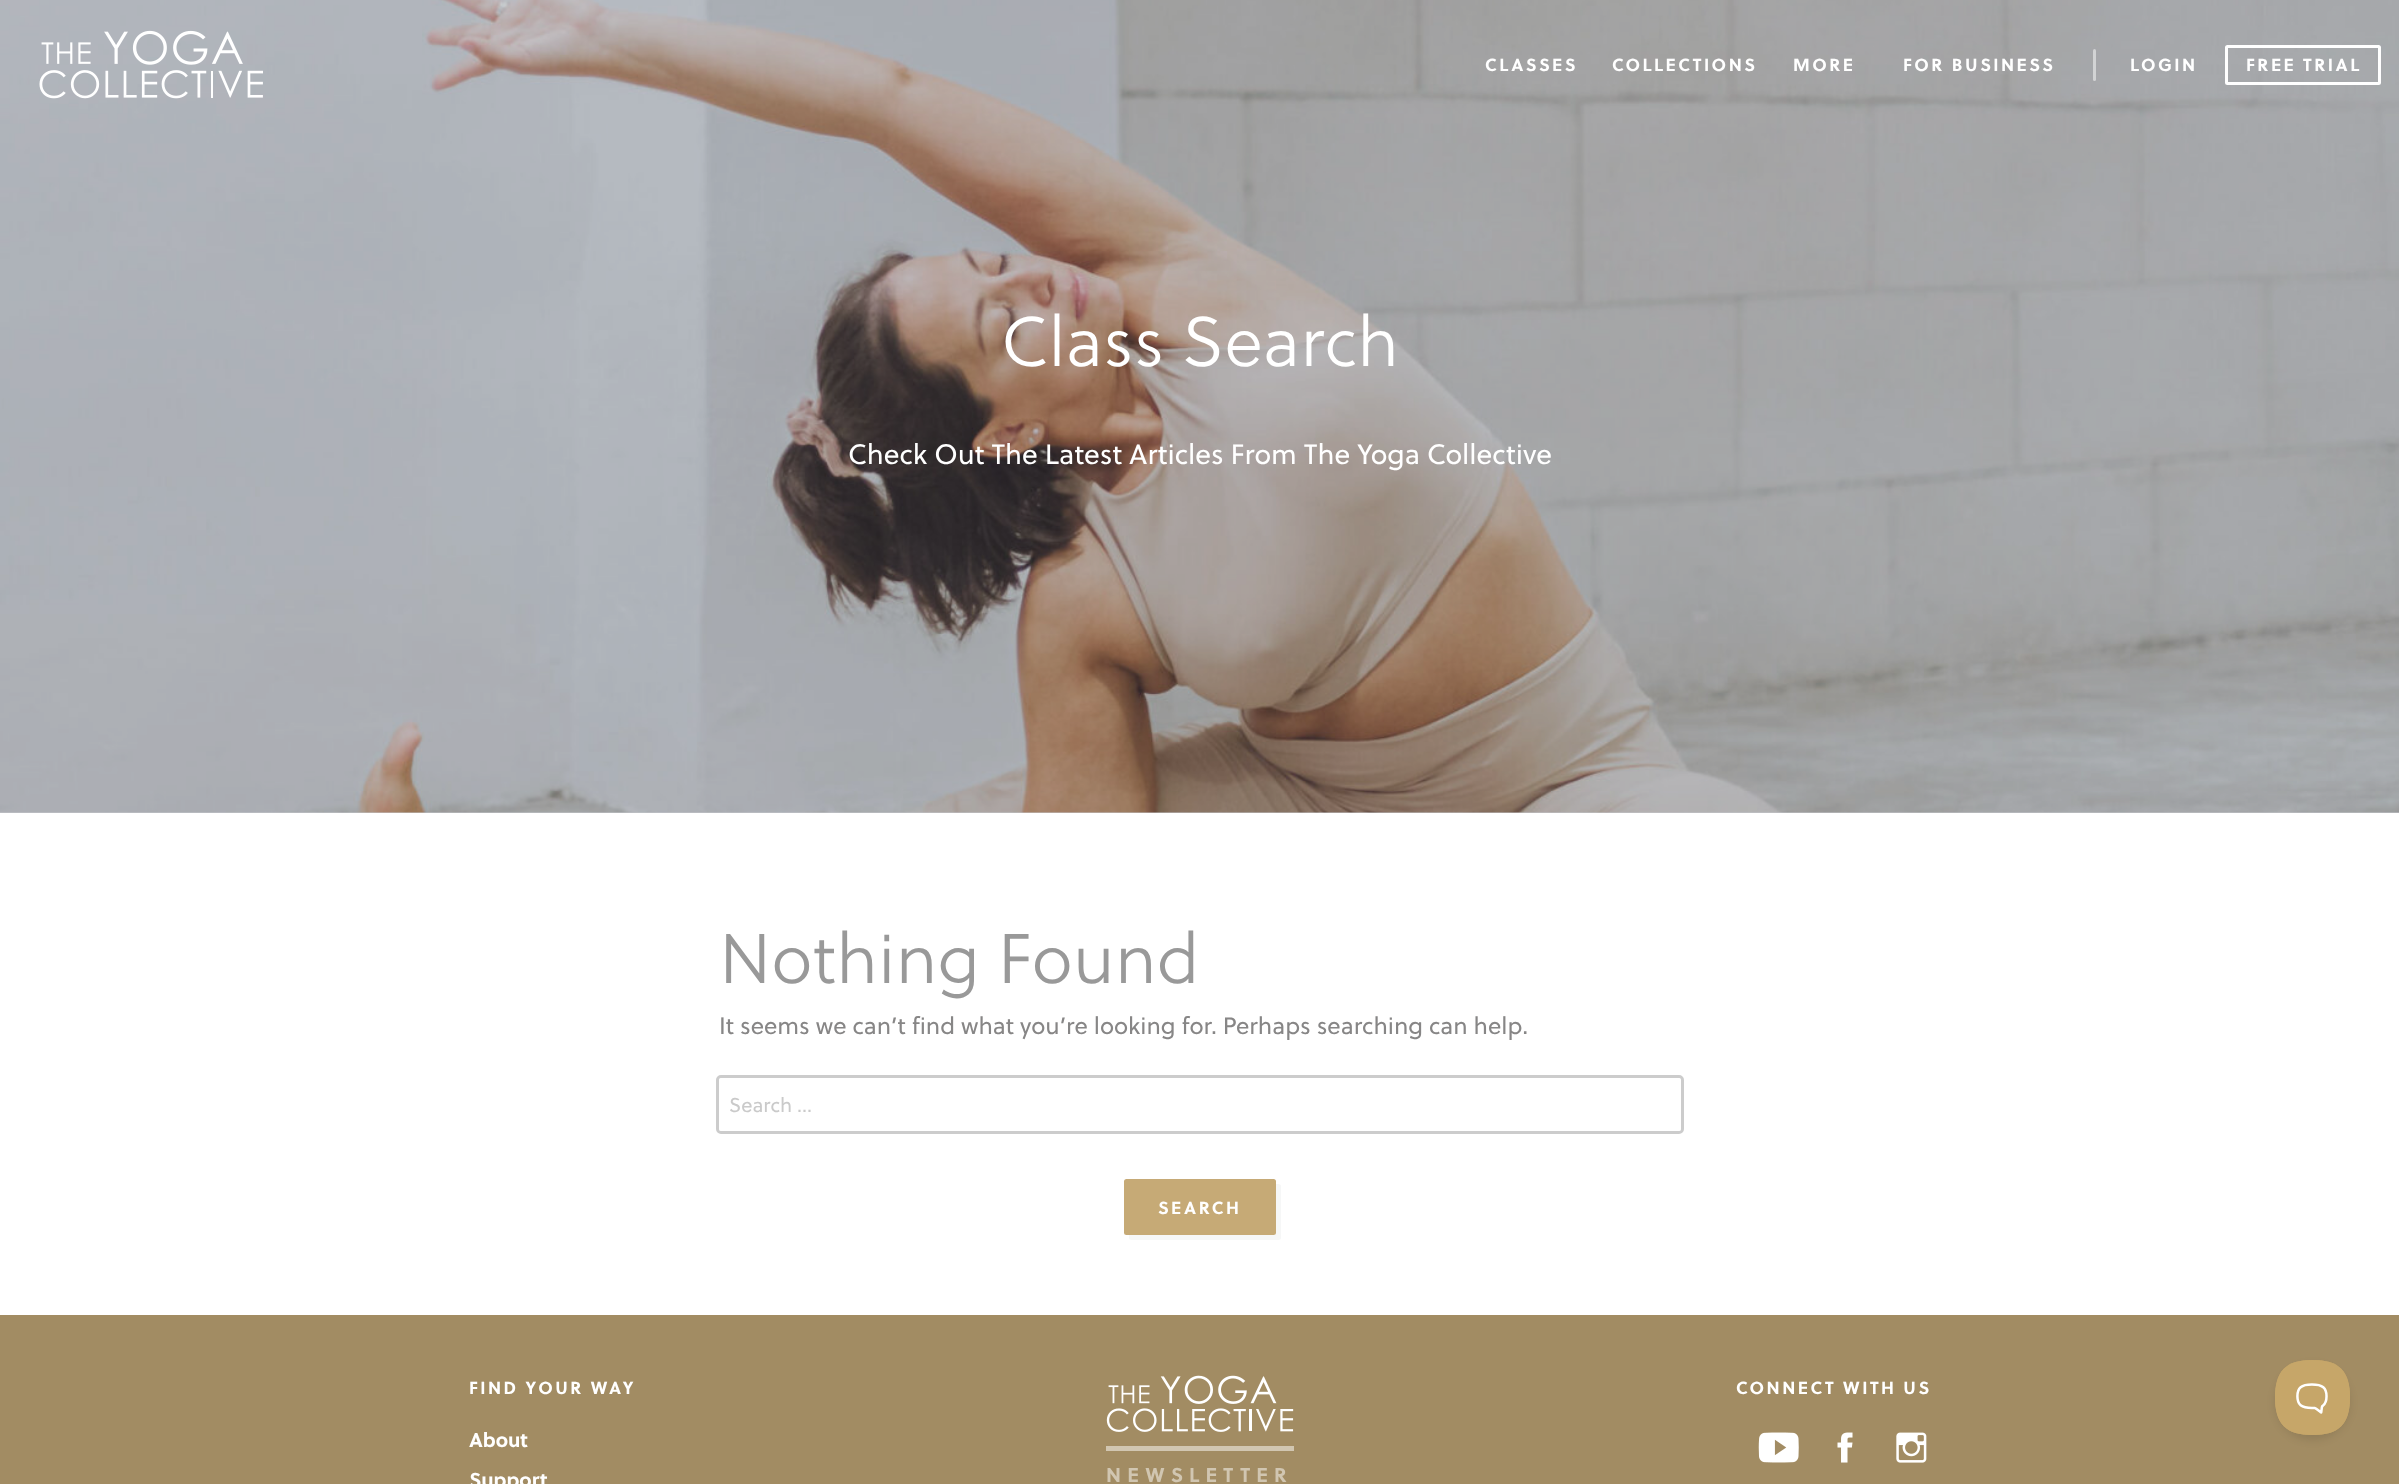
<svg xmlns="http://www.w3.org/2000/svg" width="2399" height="1484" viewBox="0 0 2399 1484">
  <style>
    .t1 { font: bold 17.5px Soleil; letter-spacing: 2.5px; fill: #fff; }
    .t2 { font: 300 70px Soleil; fill: #fff; }
    .t3 { font: 28px Soleil; fill: #fff; }
    .t4 { font: 300 70px Soleil; fill: #999; }
    .t5 { font: 23.75px Soleil; fill: #878686; }
    .t6 { font: 20px Soleil; fill: #cacaca; }
    .t7 { font: bold 20px Soleil; fill: #fff; }
    .t8 { font: bold 20px Soleil; letter-spacing: 6.25px; fill: #d1c6b1; }
  </style>
  <rect width="100%" height="100%" fill="#fff"/>
  <rect x="0" y="812" width="2399" height="1" fill="#c6c8cd"/>
  <image x="0" y="0" width="2399" height="813" href="images/2.png"/>
  <image x="39" y="30" width="224" height="69" href="images/1.png"/>
  <text x="1485" y="71" class="t1">CLASSES</text>
  <text x="1612" y="71" class="t1">COLLECTIONS</text>
  <text x="1793" y="71" class="t1">MORE</text>
  <text x="1903" y="71" class="t1">FOR BUSINESS</text>
  <rect x="2093" y="49" width="3" height="32" rx="1.5" fill="#d2d3d4"/>
  <text x="2130" y="71" class="t1">LOGIN</text>
  <rect x="2226.5" y="46.5" width="153" height="37" rx="1" fill="none" stroke="#fff" stroke-width="3"/>
  <text x="2246" y="71" class="t1">FREE TRIAL</text>
  <text x="1001" y="366" class="t2">Class Search</text>
  <text x="848" y="464" class="t3">Check Out The Latest Articles From The Yoga Collective</text>
  <text x="719" y="983" class="t4">Nothing Found</text>
  <text x="719" y="1034" class="t5">It seems we can’t find what you’re looking for. Perhaps searching can help.</text>
  <rect x="717.5" y="1076.5" width="965" height="56" rx="3.5" fill="none" stroke="#ccc" stroke-width="3"/>
  <rect x="719" y="1078" width="962" height="53" rx="2.5" fill="#ffffffcc"/>
  <text x="729" y="1112" class="t6">Search …</text>
  <path d="M1129 1235V1238C1129 1239 1130 1240 1132 1240H1278C1280 1240 1281 1239 1281 1238V1186C1281 1185 1280 1184 1278 1184H1276V1232C1276 1234 1275 1235 1274 1235Z" fill="#f6f7f7"/>
  <rect x="1124" y="1179" width="152" height="56" rx="2.5" fill="#c6aa76"/>
  <text x="1158" y="1214" class="t1">SEARCH</text>
  <rect x="0" y="1315" width="2399" height="169" fill="#a28c63"/>
  <text x="469" y="1394" class="t1">FIND YOUR WAY</text>
  <text x="469" y="1447" class="t7">About</text>
  <text x="469" y="1487" class="t7">Support</text>
  <text x="1736" y="1394" class="t1">CONNECT WITH US</text>
  <image x="1758" y="1432" width="41" height="31" href="images/3.png"/>
  <image x="1837" y="1432" width="16" height="31" href="images/4.png"/>
  <image x="1896" y="1432" width="31" height="31" href="images/5.png"/>
  <image x="1106" y="1375" width="188" height="57" href="images/6.png"/>
  <rect x="1106" y="1446" width="188" height="5" fill="#d1c6b1"/>
  <text x="1106" y="1482" class="t8">NEWSLETTER</text>
  <rect x="2275" y="1365" width="75" height="75" rx="37.5" fill="#0000001a" filter="blur(4.5px)"/>
  <image x="2275" y="1360" width="75" height="75" href="images/7.png"/>
</svg>
